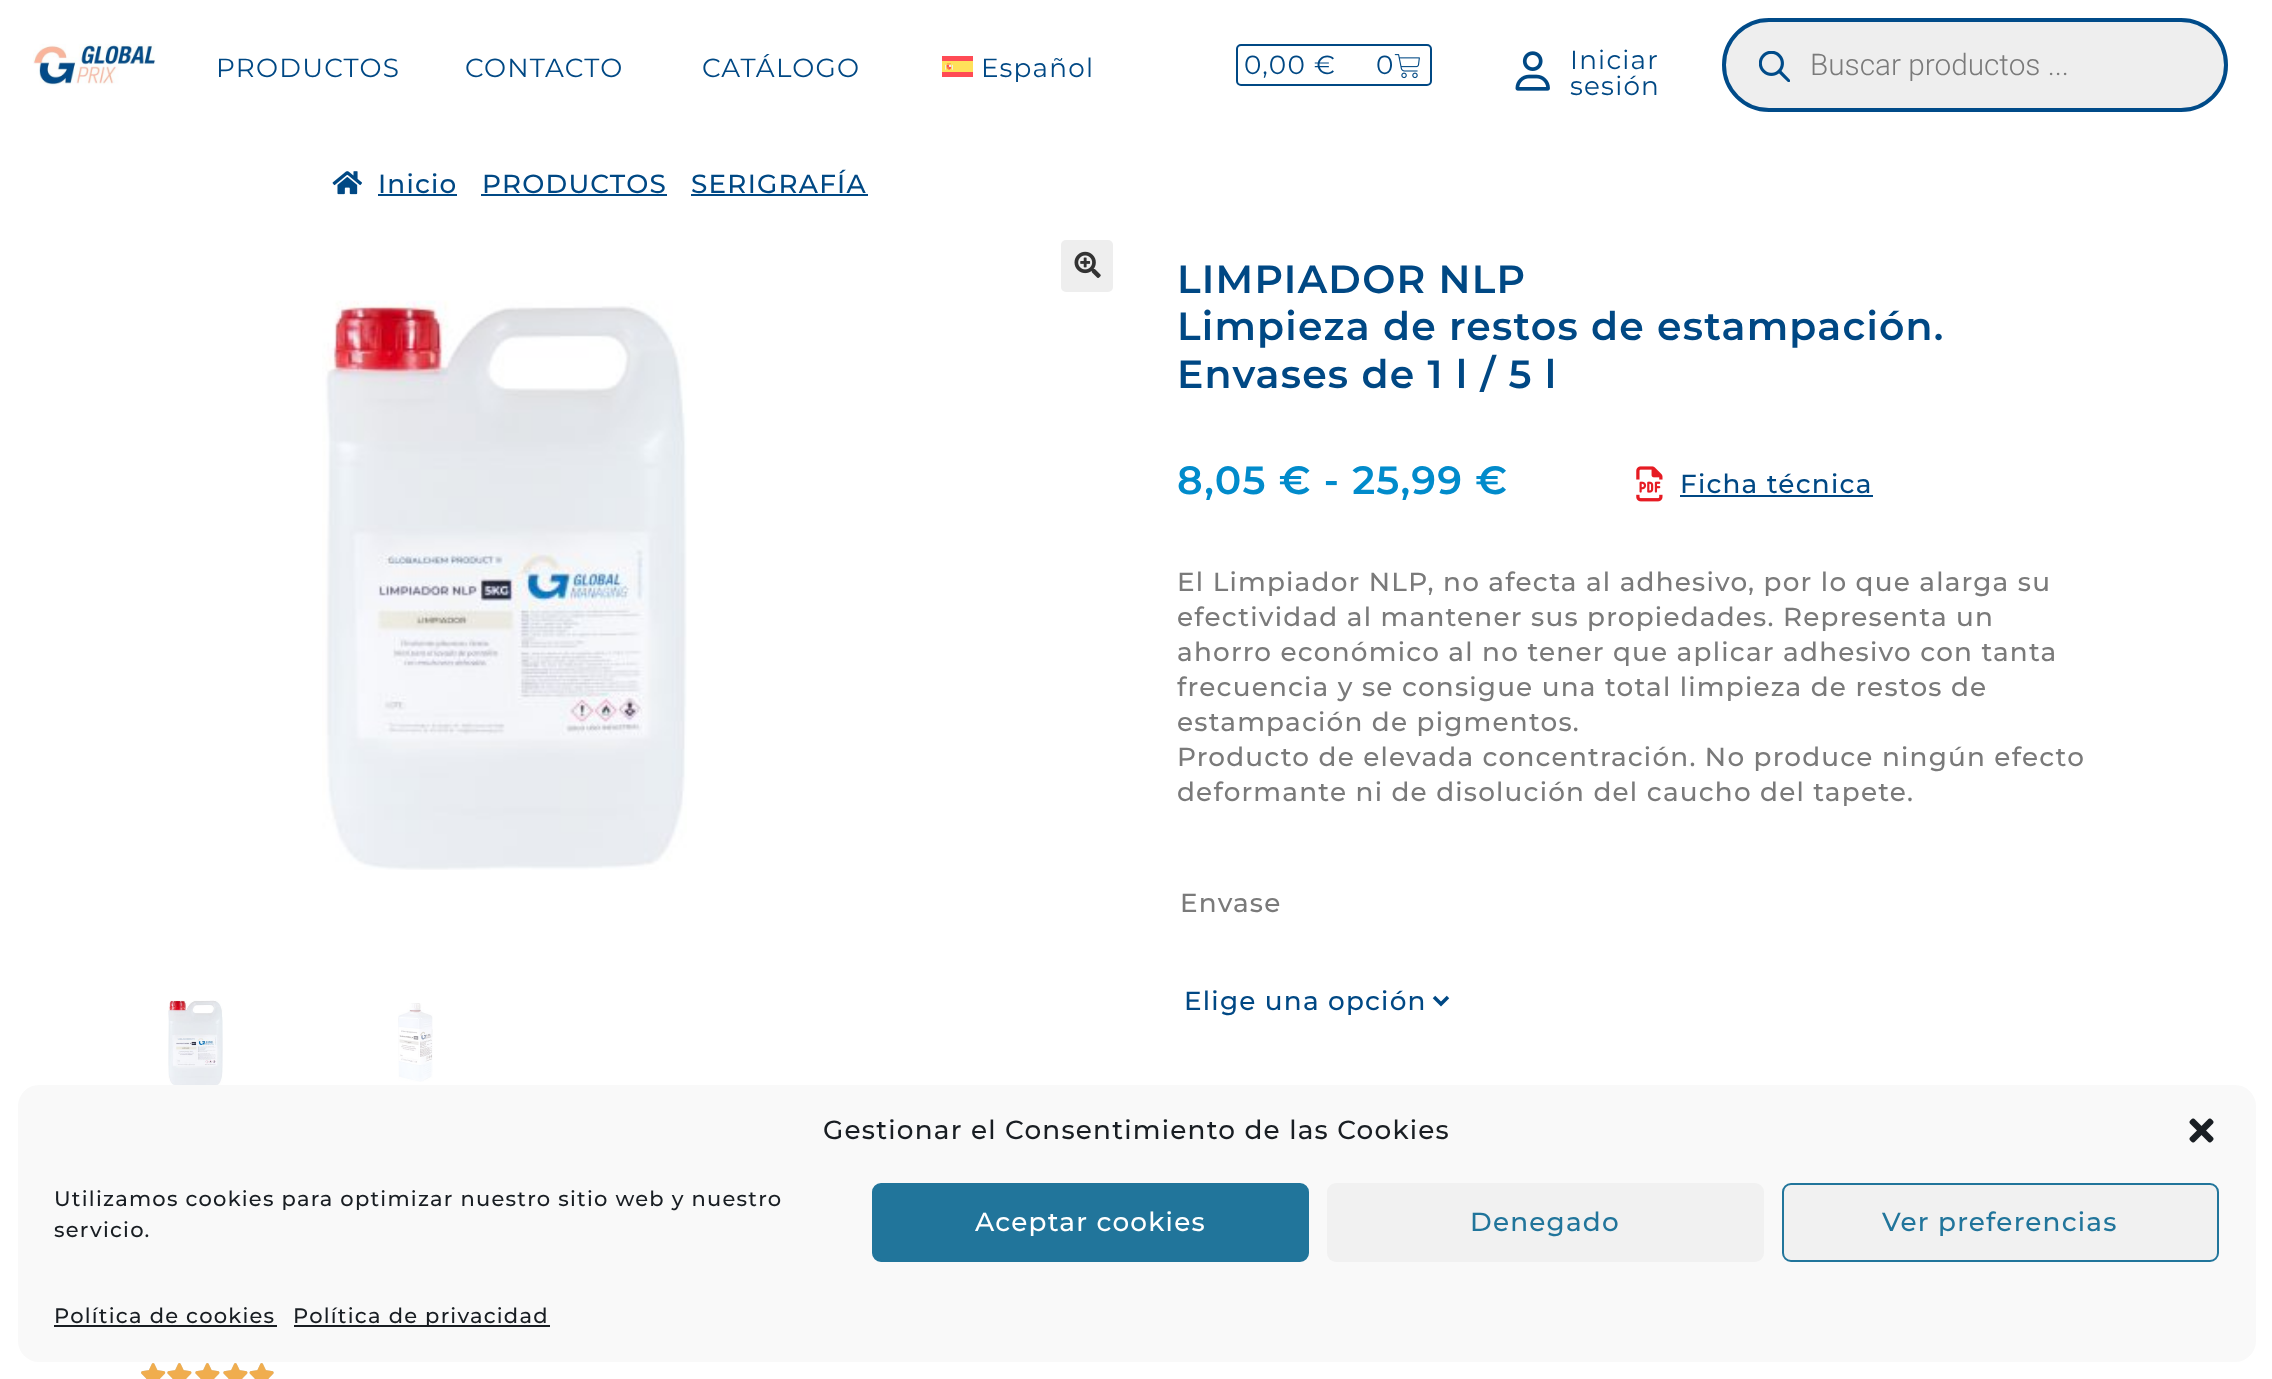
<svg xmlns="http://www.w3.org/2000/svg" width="2272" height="1379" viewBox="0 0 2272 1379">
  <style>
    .t1 { font: 26.25px Montserrat; letter-spacing: 1.22px; fill: #004884; }
    .t2 { font: 300 29.75px Roboto; fill: #7a7a7a; }
    .t3 { font: 500 26.25px Montserrat; letter-spacing: 1.22px; fill: #004884; }
    .t4 { font: 600 39.4px Montserrat; letter-spacing: 1.22px; fill: #004884; }
    .t5 { font: 600 39.4px Montserrat; letter-spacing: 1.22px; fill: #018bcb; }
    .t6 { font: 500 26.25px Montserrat; letter-spacing: 1.22px; fill: #7a7a7a; }
    .t7 { font: 500 26.25px Montserrat; letter-spacing: 1.22px; fill: #191e23; }
    .t8 { font: 500 21px Montserrat; letter-spacing: 1.22px; fill: #191e23; }
    .t9 { font: 500 26.25px Montserrat; letter-spacing: 1.22px; fill: #fff; }
    .t10 { font: 500 26.25px Montserrat; letter-spacing: 1.22px; fill: #21759b; }
  </style>
  <rect width="100%" height="100%" fill="#fff"/>
  <image x="33" y="43" width="123" height="43" href="images/1.png"/>
  <text x="216" y="77" class="t1">PRODUCTOS</text>
  <text x="465" y="77" class="t1">CONTACTO</text>
  <text x="702" y="77" class="t1">CATÁLOGO</text>
  <image x="942" y="56" width="31" height="21" href="images/2.png"/>
  <text x="981" y="77" class="t1">Español</text>
  <rect x="1237" y="45" width="194" height="40" rx="4" fill="none" stroke="#004884" stroke-width="2"/>
  <text x="1244" y="74" class="t1">0,00 €</text>
  <text x="1376" y="74" class="t1">0</text>
  <image x="1394" y="54" width="26" height="25" href="images/3.png"/>
  <image x="1515" y="51" width="35" height="40" href="images/4.png"/>
  <text x="1570" y="69" class="t1">Iniciar</text>
  <text x="1570" y="95" class="t1">sesión</text>
  <rect x="1724" y="20" width="502" height="90" rx="45" fill="#eee" stroke="#004b89" stroke-width="4"/>
  <image x="1759" y="51" width="31" height="31" href="images/5.png"/>
  <text x="1810" y="75" class="t2">Buscar productos ...</text>
  <image x="332" y="171" width="30" height="24" href="images/6.png"/>
  <text x="378" y="193" class="t3">Inicio</text>
  <rect x="378" y="194" width="79" height="2" fill="#004884"/>
  <text x="482" y="193" class="t3">PRODUCTOS</text>
  <rect x="481" y="194" width="186" height="2" fill="#004884"/>
  <text x="691" y="193" class="t3">SERIGRAFÍA</text>
  <rect x="691" y="194" width="177" height="2" fill="#004884"/>
  <rect x="1061" y="240" width="52" height="52" rx="5" fill="#eee"/>
  <image x="1074" y="251" width="27" height="27" href="images/7.png"/>
  <image x="322" y="300" width="365" height="570" href="images/8.png"/>
  <image x="168" y="1000" width="55" height="85" href="images/9.png"/>
  <image x="398" y="1003" width="35" height="79" href="images/10.png"/>
  <image x="141" y="1363" width="25" height="16" href="images/11.png"/>
  <image x="141" y="1363" width="25" height="16" href="images/12.png"/>
  <image x="167" y="1363" width="25" height="16" href="images/13.png"/>
  <image x="167" y="1363" width="25" height="16" href="images/14.png"/>
  <image x="195" y="1363" width="25" height="16" href="images/13.png"/>
  <image x="195" y="1363" width="25" height="16" href="images/14.png"/>
  <image x="223" y="1363" width="25" height="16" href="images/13.png"/>
  <image x="223" y="1363" width="25" height="16" href="images/14.png"/>
  <image x="249" y="1363" width="25" height="16" href="images/15.png"/>
  <image x="249" y="1363" width="25" height="16" href="images/16.png"/>
  <text x="1177" y="293" class="t4">LIMPIADOR NLP</text>
  <text x="1177" y="340" class="t4">Limpieza de restos de estampación.</text>
  <text x="1177" y="388" class="t4">Envases de 1 l / 5 l</text>
  <text x="1177" y="494" class="t5">8,05 € - 25,99 €</text>
  <image x="1636" y="466" width="27" height="36" href="images/17.png"/>
  <text x="1680" y="493" class="t3">Ficha técnica</text>
  <rect x="1680" y="495" width="193" height="2" fill="#004884"/>
  <text x="1177" y="591" class="t6">El Limpiador NLP, no afecta al adhesivo, por lo que alarga su</text>
  <text x="1177" y="626" class="t6">efectividad al mantener sus propiedades. Representa un</text>
  <text x="1177" y="661" class="t6">ahorro económico al no tener que aplicar adhesivo con tanta</text>
  <text x="1177" y="696" class="t6">frecuencia y se consigue una total limpieza de restos de</text>
  <text x="1177" y="731" class="t6">estampación de pigmentos.</text>
  <text x="1177" y="766" class="t6">Producto de elevada concentración. No produce ningún efecto</text>
  <text x="1177" y="801" class="t6">deformante ni de disolución del caucho del tapete.</text>
  <text x="1180" y="912" class="t6">Envase</text>
  <path d="M1434 997L1441 1004L1448 997" fill="none" stroke="#004884" stroke-width="3.5"/>
  <text x="1184" y="1010" class="t3">Elige una opción</text>
  <rect x="18" y="1085" width="2238" height="277" rx="21" fill="#f9f9f9"/>
  <text x="823" y="1139" class="t7">Gestionar el Consentimiento de las Cookies</text>
  <image x="2189" y="1118" width="25" height="25" href="images/18.png"/>
  <text x="54" y="1206" class="t8">Utilizamos cookies para optimizar nuestro sitio web y nuestro</text>
  <text x="54" y="1237" class="t8">servicio.</text>
  <rect x="873" y="1184" width="435" height="77" rx="8" fill="#21759b" stroke="#21759b" stroke-width="2"/>
  <text x="975" y="1231" class="t9">Aceptar cookies</text>
  <rect x="1327" y="1183" width="437" height="79" rx="9" fill="#f1f1f1"/>
  <text x="1470" y="1231" class="t10">Denegado</text>
  <rect x="1783" y="1184" width="435" height="77" rx="8" fill="#f1f1f1" stroke="#21759b" stroke-width="2"/>
  <text x="1882" y="1231" class="t10">Ver preferencias</text>
  <text x="54" y="1323" class="t8">Política de cookies</text>
  <rect x="54" y="1325" width="223" height="2" fill="#191e23"/>
  <rect x="294" y="1325" width="256" height="2" fill="#191e23"/>
  <text x="293" y="1323" class="t8">Política de privacidad</text>
</svg>
